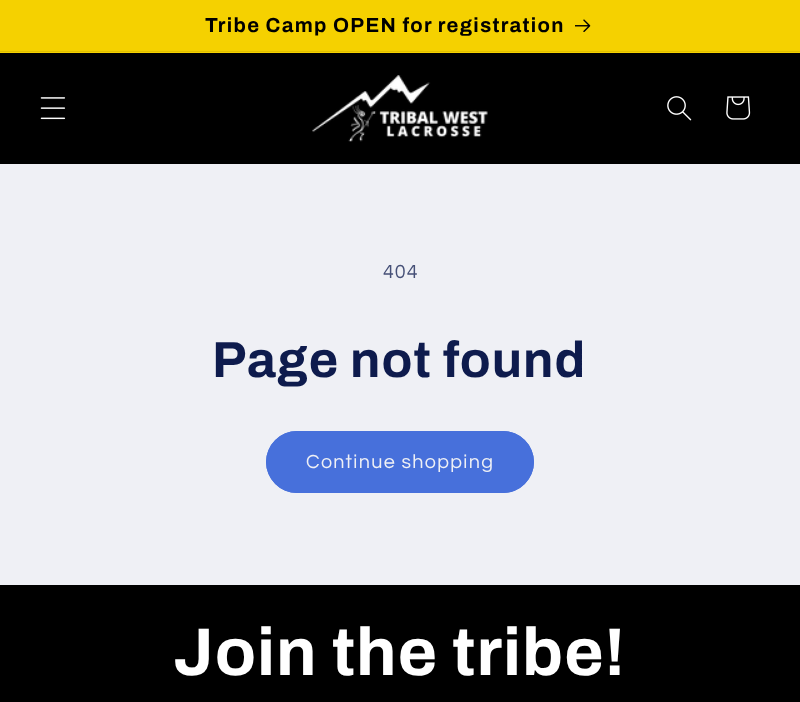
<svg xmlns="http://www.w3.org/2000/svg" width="800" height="702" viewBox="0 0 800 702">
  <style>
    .t1 { font: bold 20.25px Archivo; letter-spacing: 1.3px; fill: #000; }
    .t2 { font: 19.75px Questrial; letter-spacing: 1px; fill: #465077; }
    .t3 { font: bold 50.5px Archivo; letter-spacing: 1px; fill: #0e1b4d; }
    .t4 { font: 19.75px Questrial; letter-spacing: 1.3px; fill: #eff0f5; }
    .t5 { font: bold 67.5px Archivo; letter-spacing: 1px; fill: #fff; }
  </style>
  <rect width="100%" height="100%" fill="#eff0f5"/>
  <rect x="0" y="0" width="800" height="53" fill="#f5d100"/>
  <rect x="0" y="51" width="800" height="1" fill="#e1c000"/>
  <text x="205" y="32" class="t1">Tribe Camp OPEN for registration</text>
  <image x="575" y="19" width="16" height="13" href="images/1.png"/>
  <rect x="0" y="53" width="800" height="111" fill="#000"/>
  <image x="40" y="97" width="26" height="23" href="images/2.png"/>
  <image x="312" y="75" width="176" height="67" href="images/3.png"/>
  <image x="667" y="96" width="25" height="25" href="images/4.png"/>
  <image x="726" y="96" width="25" height="24" href="images/5.png"/>
  <text x="383" y="278" class="t2">404</text>
  <text x="212" y="377" class="t3">Page not found</text>
  <rect x="266" y="431" width="268" height="62" rx="31" fill="#4770db"/>
  <rect x="266.5" y="431.5" width="267" height="61" rx="30.5" fill="none" stroke="#4770db"/>
  <text x="306" y="468" class="t4">Continue shopping</text>
  <rect x="0" y="585" width="800" height="117" fill="#000"/>
  <text x="173" y="675" class="t5">Join the tribe!</text>
</svg>
